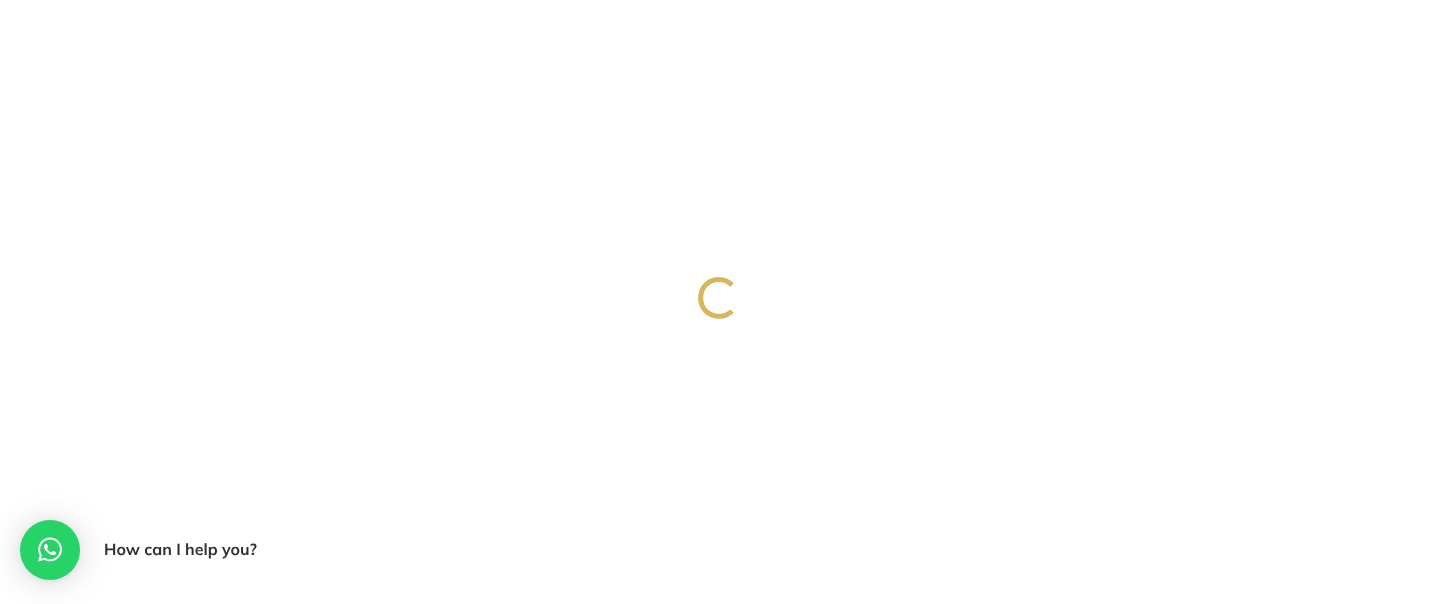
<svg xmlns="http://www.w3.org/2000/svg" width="1437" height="604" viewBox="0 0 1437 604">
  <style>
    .t1 { font: bold 16px Mulish; fill: #303030; }
  </style>
  <rect width="100%" height="100%" fill="#fff"/>
  <path d="M732 311C727.5 315.5 721.5 317 715.5 316C693.5 311.5 697 279.5 719 279.5C724 279.5 728.5 281.5 732 285" fill="none" stroke="#d7b65d" stroke-width="5"/>
  <rect x="20" y="522" width="60" height="60" rx="30" fill="#00000029" filter="blur(16px)"/>
  <rect x="20" y="521" width="60" height="60" rx="30" fill="#0000000f" filter="blur(3px)"/>
  <circle cx="50" cy="550" r="30" fill="#25d366"/>
  <image x="38" y="537" width="24" height="25" href="images/1.png"/>
  <text x="104" y="555" class="t1">How can I help you?</text>
</svg>
